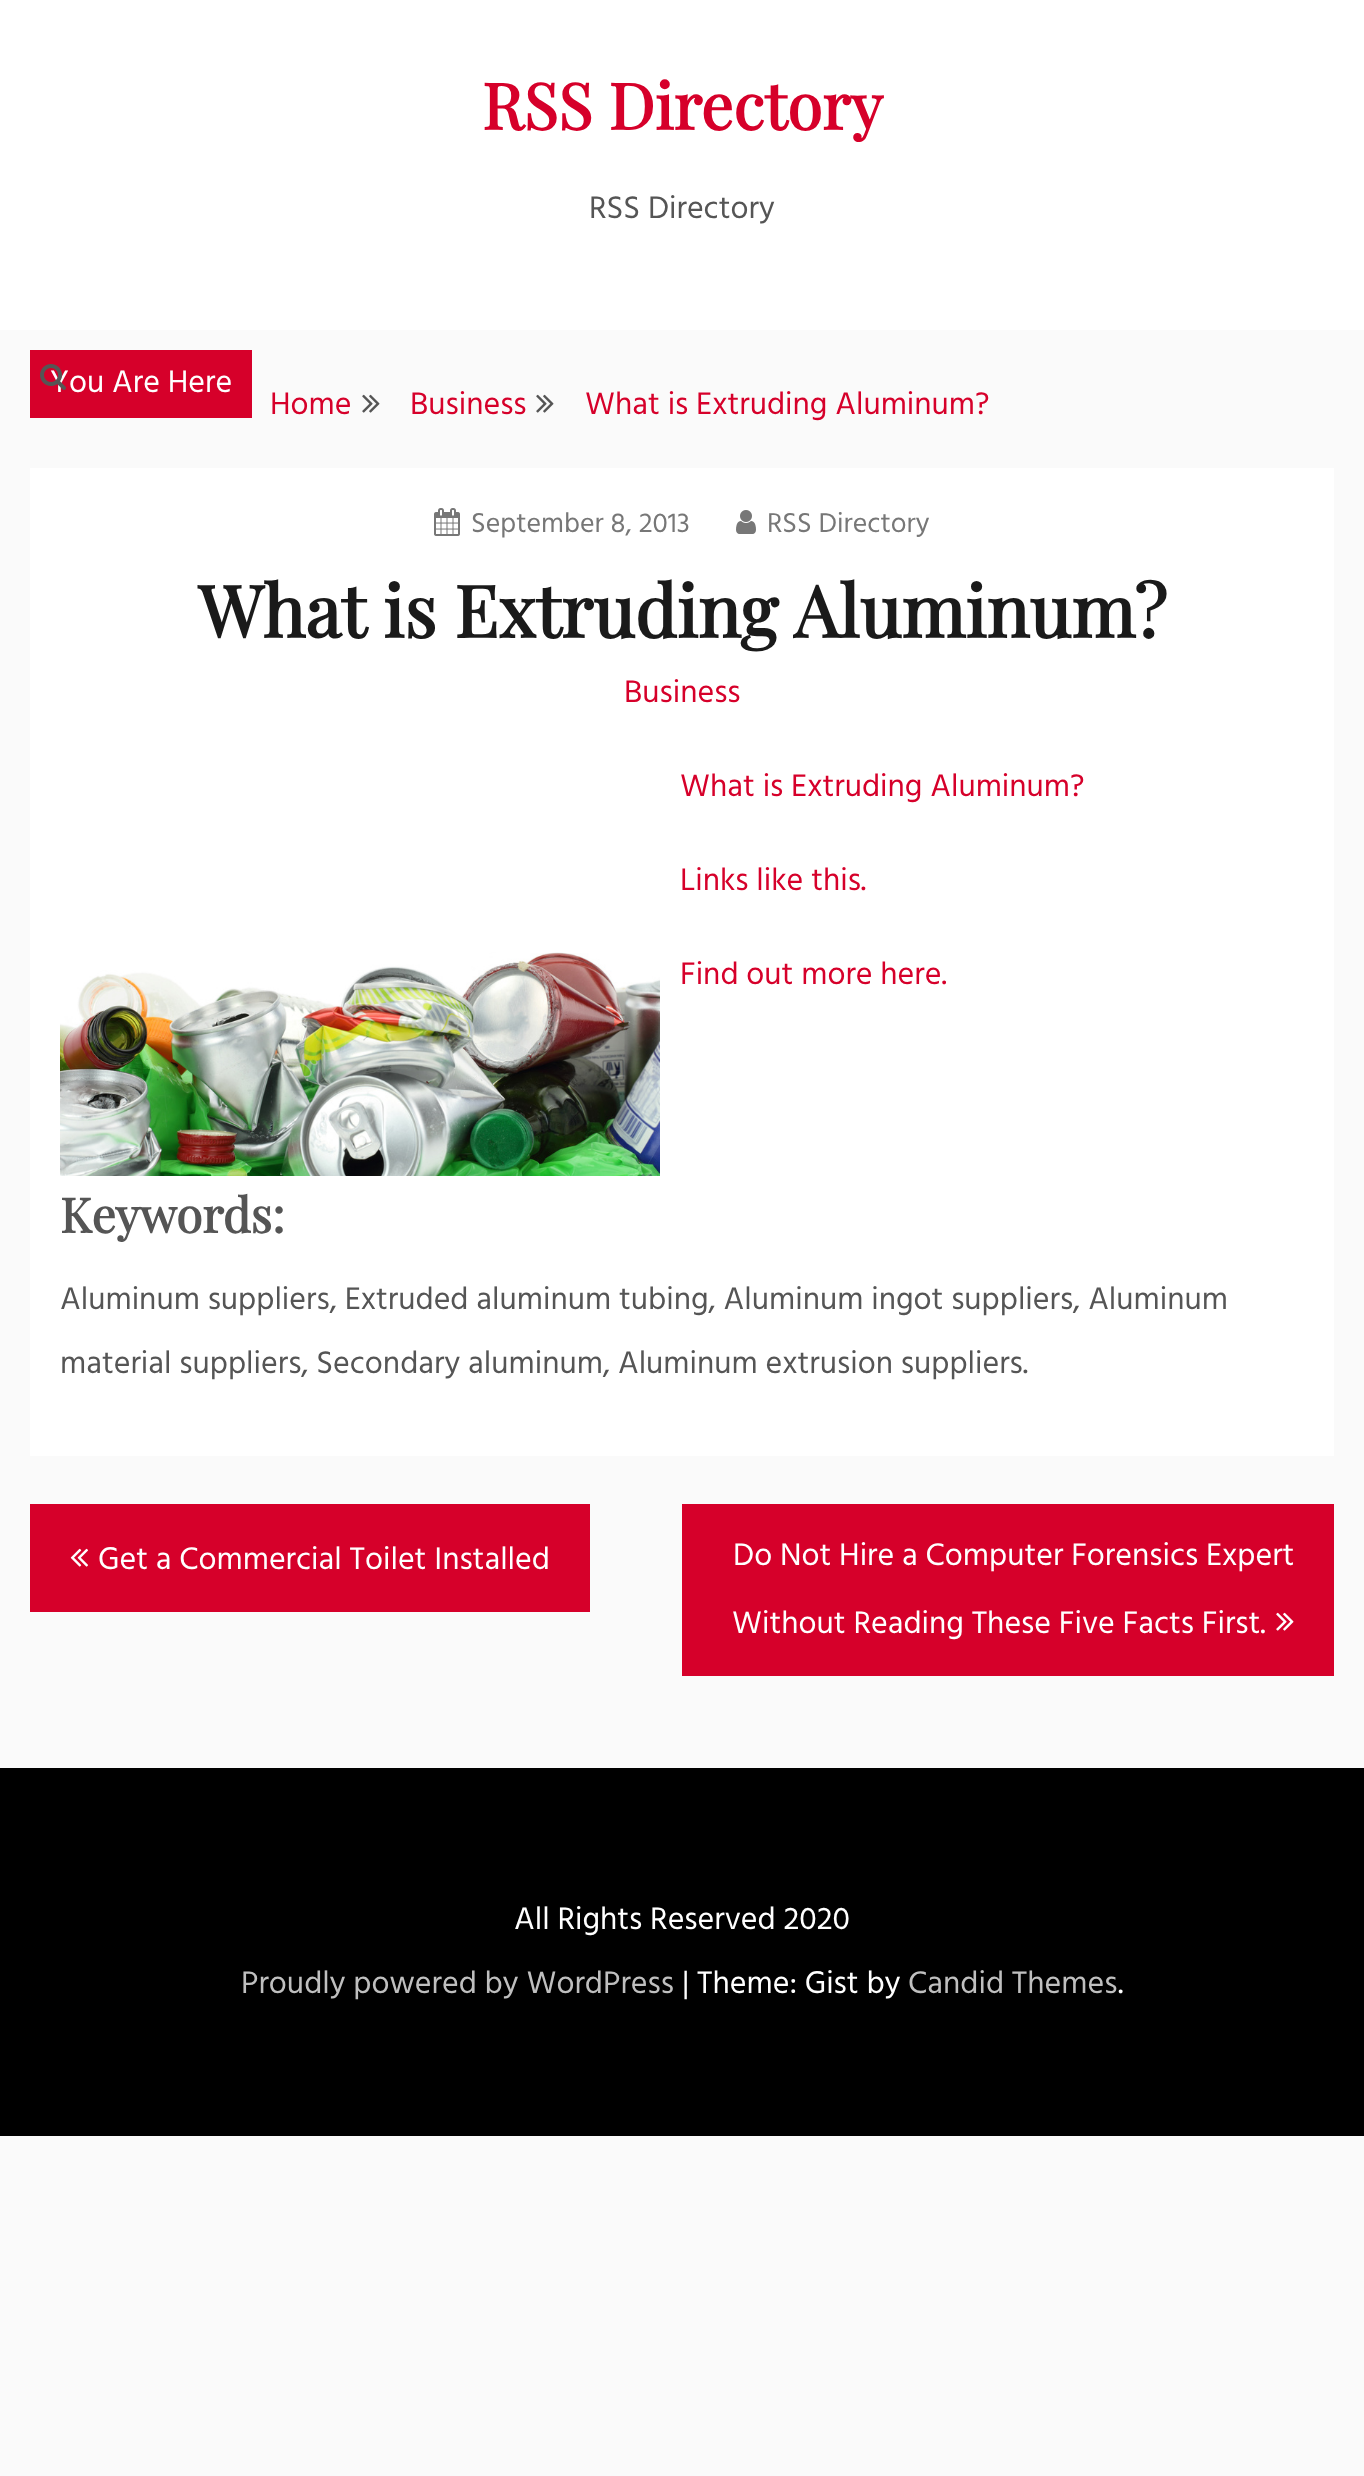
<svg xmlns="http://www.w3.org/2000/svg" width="1364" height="2476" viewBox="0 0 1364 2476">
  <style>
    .t1 { font: bold 64px Playfair Display; fill: #d6002a; }
    .t2 { font: 32px Hind; fill: #555; }
    .t3 { font: 32px Hind; fill: #fff; }
    .t4 { font: 32px Hind; fill: #d6002a; }
    .t5 { font: 28px Hind; fill: #777; }
    .t6 { font: bold 72px Playfair Display; fill: #1a1a1a; }
    .t7 { font: bold 48px Playfair Display; fill: #555; }
    .t8 { font: 32px Hind; fill: #bfbfbf; }
  </style>
  <rect width="100%" height="100%" fill="#fafafa"/>
  <rect x="0" y="0" width="1364" height="330" fill="#fff"/>
  <text x="482" y="130" class="t1">RSS Directory</text>
  <text x="589" y="218" class="t2">RSS Directory</text>
  <rect x="30" y="350" width="222" height="68" fill="#d6002a"/>
  <text x="50" y="392" class="t3">You Are Here</text>
  <image x="40" y="364" width="26" height="26" href="images/1.png"/>
  <text x="270" y="414" class="t4">Home</text>
  <image x="362" y="394" width="18" height="19" href="images/2.png"/>
  <text x="410" y="414" class="t4">Business</text>
  <image x="536" y="394" width="18" height="19" href="images/2.png"/>
  <text x="585" y="414" class="t4">What is Extruding Aluminum?</text>
  <rect x="30" y="468" width="1304" height="988" fill="#fff"/>
  <image x="434" y="508" width="26" height="28" href="images/3.png"/>
  <text x="471" y="532" class="t5">September 8, 2013</text>
  <image x="736" y="510" width="20" height="24" href="images/4.png"/>
  <text x="767" y="532" class="t5">RSS Directory</text>
  <text x="198" y="638" class="t6">What is Extruding Aluminum?</text>
  <text x="624" y="702" class="t4">Business</text>
  <text x="680" y="796" class="t4">What is Extruding Aluminum?</text>
  <text x="680" y="890" class="t4">Links like this.</text>
  <image x="60" y="952" width="600" height="224" href="images/5.png"/>
  <text x="680" y="984" class="t4">Find out more here.</text>
  <text x="60" y="1233" class="t7">Keywords:</text>
  <text x="60" y="1309" class="t2">Aluminum suppliers, Extruded aluminum tubing, Aluminum ingot suppliers, Aluminum</text>
  <text x="60" y="1373" class="t2">material suppliers, Secondary aluminum, Aluminum extrusion suppliers.</text>
  <rect x="30" y="1504" width="560" height="108" fill="#d6002a"/>
  <image x="70" y="1548" width="18" height="19" href="images/6.png"/>
  <text x="98" y="1569" class="t3">Get a Commercial Toilet Installed</text>
  <rect x="682" y="1504" width="652" height="172" fill="#d6002a"/>
  <text x="733" y="1565" class="t3">Do Not Hire a Computer Forensics Expert</text>
  <text x="732" y="1633" class="t3">Without Reading These Five Facts First.</text>
  <image x="1276" y="1612" width="18" height="19" href="images/7.png"/>
  <rect x="0" y="1768" width="1364" height="368" fill="#000"/>
  <text x="514" y="1929" class="t3">All Rights Reserved 2020</text>
  <text x="241" y="1993" class="t8">Proudly powered by WordPress</text>
  <text x="682" y="1993" class="t3">| Theme: Gist by</text>
  <text x="908" y="1993" class="t8">Candid Themes</text>
  <text x="1118" y="1993" class="t3">.</text>
</svg>
